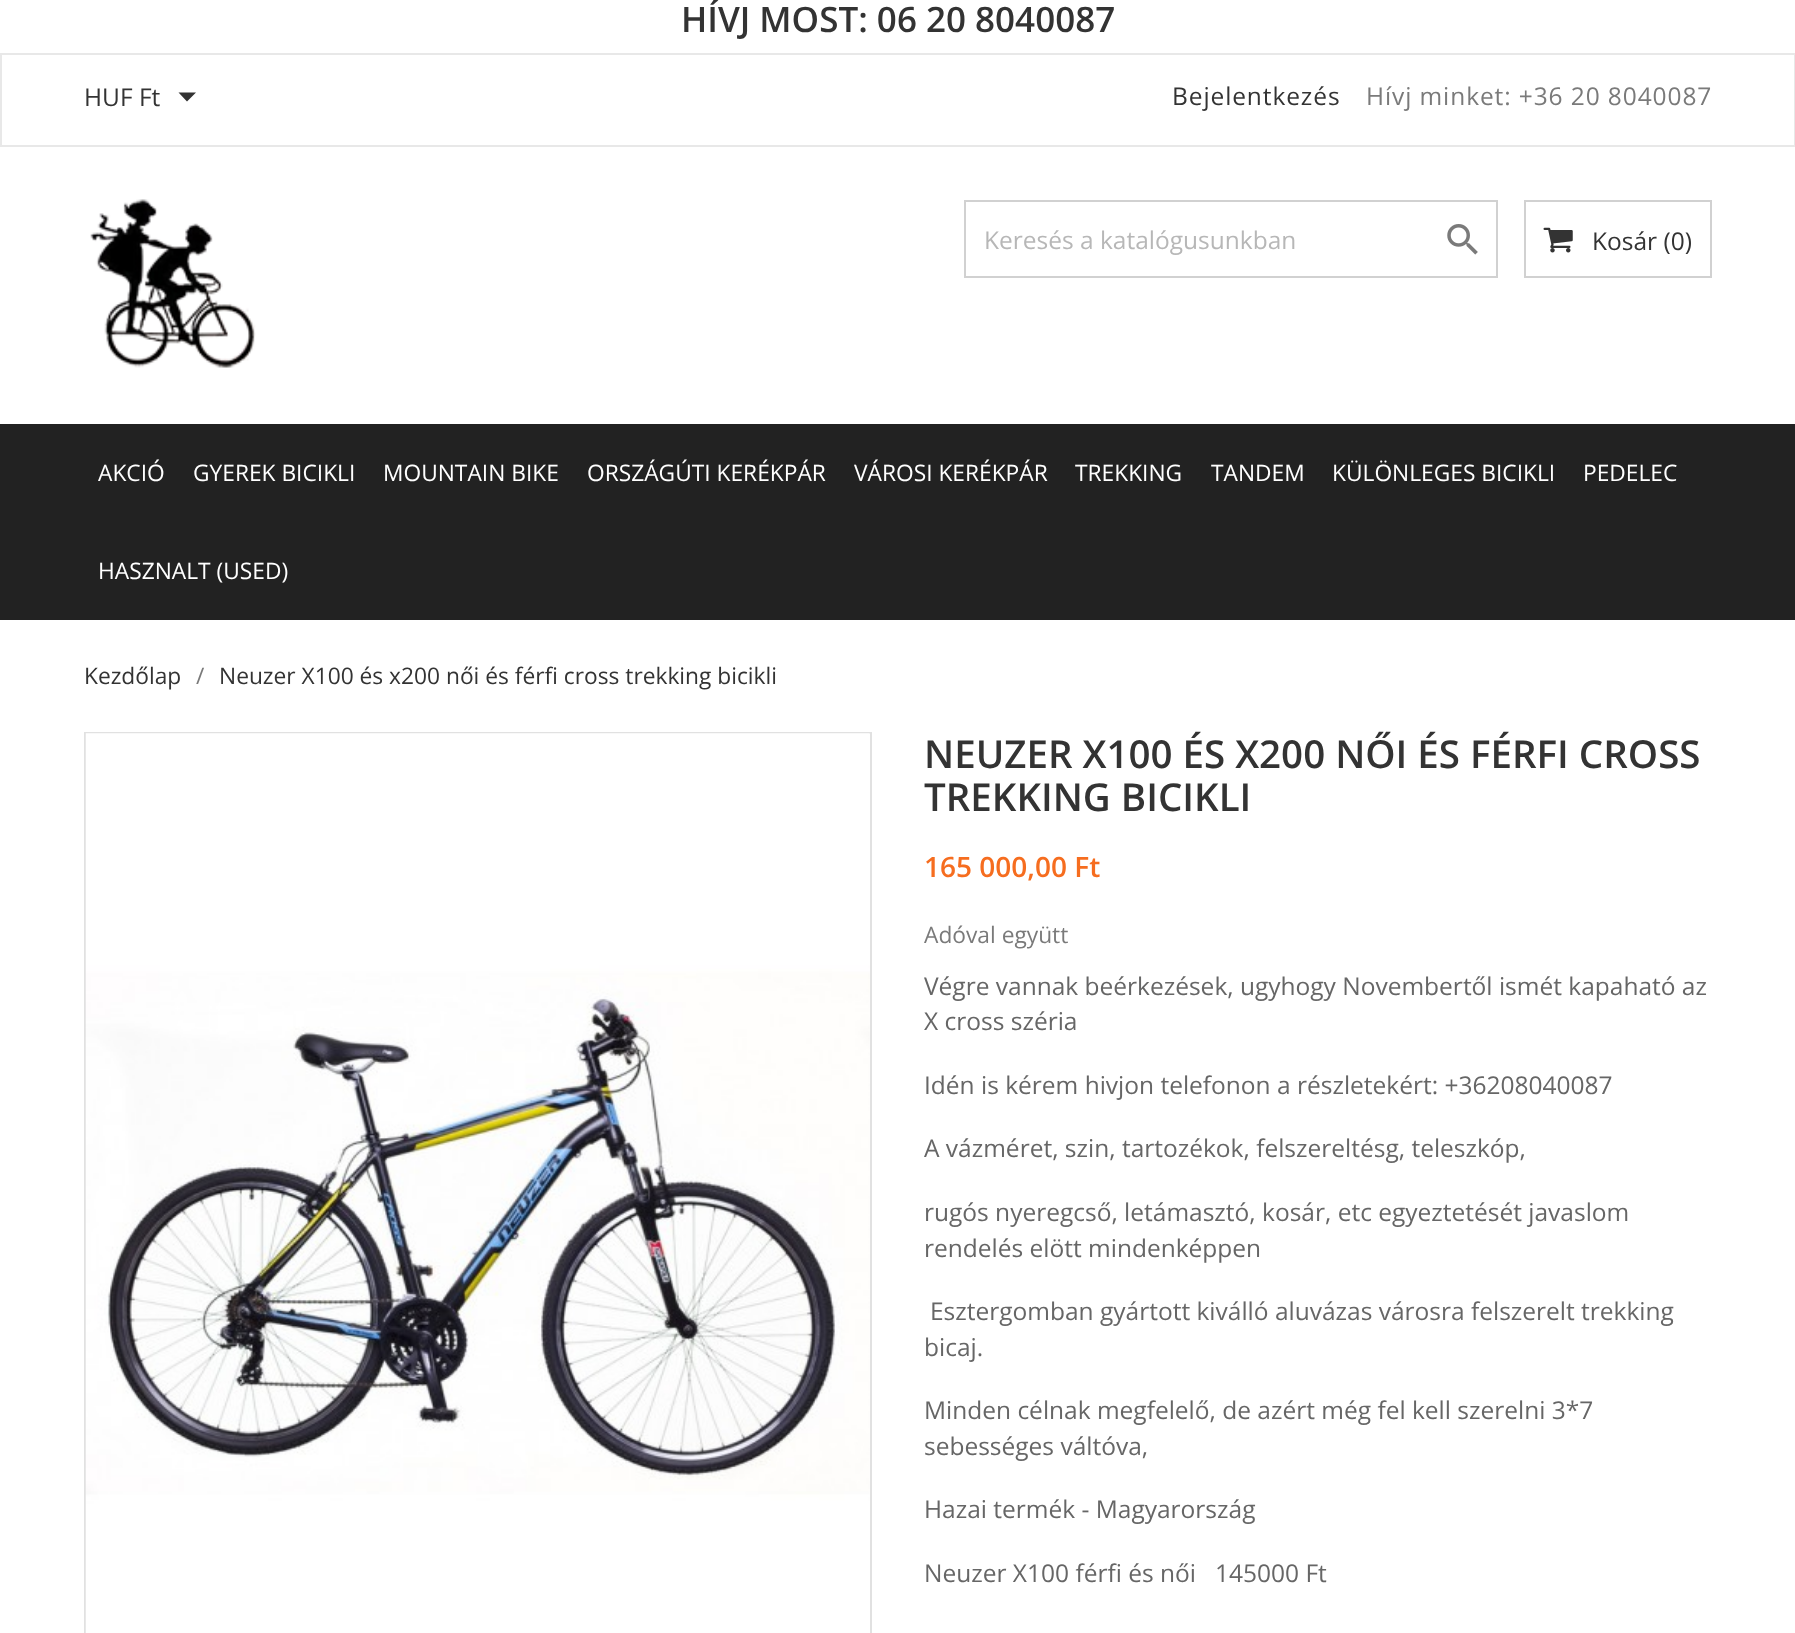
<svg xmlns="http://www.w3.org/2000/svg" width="1795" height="1633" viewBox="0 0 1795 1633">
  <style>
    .t1 { font: 600 35px Open Sans; fill: #333; }
    .t2 { font: 24.5px Open Sans; fill: #333; }
    .t3 { font: 24.5px Open Sans; letter-spacing: 0.9px; fill: #333; }
    .t4 { font: 24.5px Open Sans; letter-spacing: 0.9px; fill: #7a7a7a; }
    .t5 { font: 24.5px Open Sans; fill: #b7b7b7; }
    .t6 { font: 22.75px Open Sans; fill: #fff; }
    .t7 { font: 22.75px Open Sans; fill: #333; }
    .t8 { font: 22.75px Open Sans; fill: #7a7a7a; }
    .t9 { font: 600 38.5px Open Sans; fill: #333; }
    .t10 { font: 600 28px Open Sans; fill: #f66d1f; }
    .t11 { font: 24.5px Open Sans; fill: #666; }
  </style>
  <rect width="100%" height="100%" fill="#fff"/>
  <text x="681" y="32" class="t1">HÍVJ MOST: 06 20 8040087</text>
  <rect x="1" y="54" width="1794" height="92" fill="none" stroke="#e8e8e8" stroke-width="2"/>
  <text x="84" y="106" class="t2">HUF Ft</text>
  <path d="M178.5 92.5H196L187 101.5Z" fill="#333"/>
  <text x="1172" y="105" class="t3">Bejelentkezés</text>
  <text x="1366" y="105" class="t4">Hívj minket: +36 20 8040087</text>
  <image x="90" y="199" width="166" height="169" href="images/1.png"/>
  <rect x="965" y="201" width="532" height="76" fill="none" stroke="#d1d1d1" stroke-width="2"/>
  <text x="984" y="249" class="t5">Keresés a katalógusunkban</text>
  <image x="1447" y="224" width="31" height="31" href="images/2.png"/>
  <rect x="1525" y="201" width="186" height="76" fill="none" stroke="#d1d1d1" stroke-width="2"/>
  <image x="1543" y="227" width="30" height="26" href="images/3.png"/>
  <text x="1592" y="250" class="t2">Kosár (0)</text>
  <rect x="0" y="424" width="1795" height="196" fill="#222"/>
  <text x="98" y="481" class="t6">AKCIÓ</text>
  <text x="193" y="481" class="t6">GYEREK BICIKLI</text>
  <text x="383" y="481" class="t6">MOUNTAIN BIKE</text>
  <text x="587" y="481" class="t6">ORSZÁGÚTI KERÉKPÁR</text>
  <text x="854" y="481" class="t6">VÁROSI KERÉKPÁR</text>
  <text x="1075" y="481" class="t6">TREKKING</text>
  <text x="1211" y="481" class="t6">TANDEM</text>
  <text x="1332" y="481" class="t6">KÜLÖNLEGES BICIKLI</text>
  <text x="1583" y="481" class="t6">PEDELEC</text>
  <text x="98" y="579" class="t6">HASZNALT (USED)</text>
  <text x="84" y="684" class="t7">Kezdőlap</text>
  <text x="196" y="684" class="t8">/</text>
  <text x="219" y="684" class="t7">Neuzer X100 és x200 női és férfi cross trekking bicikli</text>
  <rect x="85" y="733" width="786" height="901" fill="none" stroke="#e1e1e1" stroke-width="2"/>
  <image x="85" y="733" width="785" height="900" href="images/4.png"/>
  <text x="924" y="768" class="t9">NEUZER X100 ÉS X200 NŐI ÉS FÉRFI CROSS</text>
  <text x="924" y="811" class="t9">TREKKING BICIKLI</text>
  <text x="924" y="877" class="t10">165 000,00 Ft</text>
  <text x="924" y="943" class="t8">Adóval együtt</text>
  <text x="924" y="995" class="t11">Végre vannak beérkezések, ugyhogy Novembertől ismét kapaható az</text>
  <text x="924" y="1030" class="t11">X cross széria</text>
  <text x="924" y="1094" class="t11">Idén is kérem hivjon telefonon a részletekért: +36208040087</text>
  <text x="924" y="1157" class="t11">A vázméret, szin, tartozékok, felszereltésg, teleszkóp,</text>
  <text x="924" y="1221" class="t11">rugós nyeregcső, letámasztó, kosár, etc egyeztetését javaslom</text>
  <text x="924" y="1257" class="t11">rendelés elött mindenképpen</text>
  <text x="930" y="1320" class="t11">Esztergomban gyártott kiválló aluvázas városra felszerelt trekking</text>
  <text x="924" y="1356" class="t11">bicaj.</text>
  <text x="924" y="1419" class="t11">Minden célnak megfelelő, de azért még fel kell szerelni 3*7</text>
  <text x="924" y="1455" class="t11">sebességes váltóva,</text>
  <text x="924" y="1518" class="t11">Hazai termék - Magyarország</text>
  <text x="924" y="1582" class="t11" xml:space="preserve">Neuzer X100 férfi és női   145000 Ft</text>
</svg>
